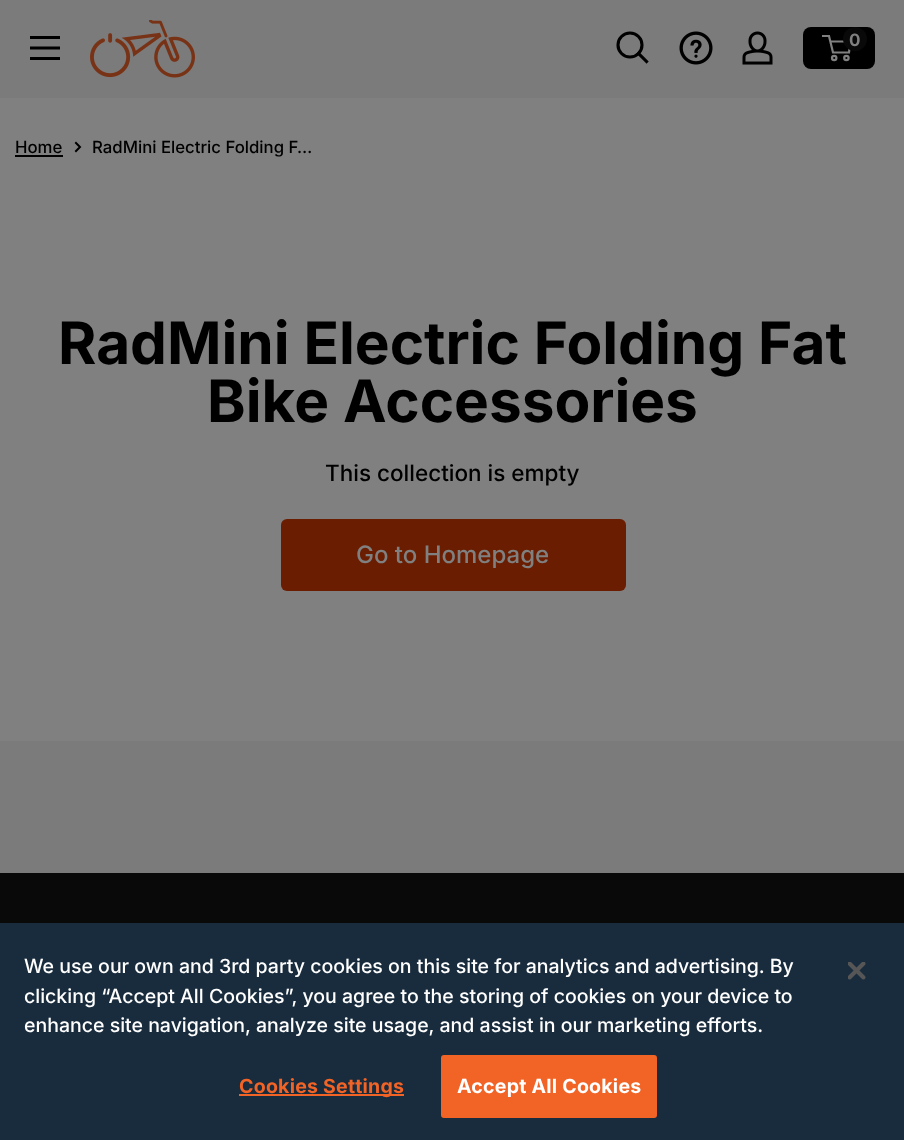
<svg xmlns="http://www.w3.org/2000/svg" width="904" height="1140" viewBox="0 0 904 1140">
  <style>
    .t1 { font: bold 17px Inter; fill: #808080; }
    .t2 { font: 500 16.75px Inter; fill: #000; }
    .t3 { font: bold 58.5px Inter; fill: #000; }
    .t4 { font: 500 22.5px Inter; fill: #000; }
    .t5 { font: 500 24px Inter; fill: #808080; }
    .t6 { font: 500 19.5px Inter; fill: #fff; }
    .t7 { font: bold 19.5px Inter; letter-spacing: 0.25px; fill: #f26326; }
    .t8 { font: bold 19.5px Inter; letter-spacing: 0.25px; fill: #fff; }
  </style>
  <rect width="100%" height="100%" fill="#808080"/>
  <rect x="0" y="0" width="904" height="98" fill="#7b7b7b"/>
  <image x="30" y="36" width="30" height="24" href="images/1.png"/>
  <image x="90" y="20" width="105" height="58" href="images/2.png"/>
  <path d="M646.5 61.5L638.5 53.5" fill="none" stroke="#000" stroke-width="3.1" stroke-linecap="square"/>
  <circle cx="630" cy="45" r="12" fill="none" stroke="#000" stroke-width="3.1"/>
  <image x="679" y="31" width="34" height="34" href="images/3.png"/>
  <image x="742" y="31" width="31" height="34" href="images/4.png"/>
  <rect x="803" y="27" width="72" height="42" rx="8" fill="#000"/>
  <circle cx="834.2" cy="58" r="2.2" fill="none" stroke="#808080" stroke-width="2.2"/>
  <circle cx="846.4" cy="58" r="2.2" fill="none" stroke="#808080" stroke-width="2.2"/>
  <path d="M830 41.5H850.5L849 52.5H833L829 36H822" fill="none" stroke="#808080" stroke-width="2.2"/>
  <circle cx="855" cy="39" r="12" fill="#090909"/>
  <text x="849" y="46" class="t1">0</text>
  <text x="15" y="153" class="t2">Home</text>
  <rect x="15" y="155" width="48" height="2" fill="#000"/>
  <path d="M76 143L80 147L76 151" fill="none" stroke="#000" stroke-width="2" stroke-linecap="square"/>
  <text x="92" y="153" class="t2">RadMini Electric Folding F…</text>
  <text x="58" y="364" class="t3">RadMini Electric Folding Fat</text>
  <text x="207" y="422" class="t3">Bike Accessories</text>
  <text x="325" y="481" class="t4">This collection is empty</text>
  <rect x="281" y="519" width="345" height="72" rx="6" fill="#6a1d00"/>
  <text x="356" y="563" class="t5">Go to Homepage</text>
  <rect x="0" y="741" width="904" height="132" fill="#7b7b7b"/>
  <rect x="0" y="873" width="904" height="50" fill="#090909"/>
  <rect x="0" y="923" width="904" height="217" fill="#192c3e"/>
  <text x="24" y="973" class="t6">We use our own and 3rd party cookies on this site for analytics and advertising. By</text>
  <text x="24" y="1003" class="t6">clicking “Accept All Cookies”, you agree to the storing of cookies on your device to</text>
  <text x="24" y="1032" class="t6">enhance site navigation, analyze site usage, and assist in our marketing efforts.</text>
  <rect x="239" y="1094" width="165" height="2" fill="#f26326"/>
  <text x="239" y="1093" class="t7">Cookies Settings</text>
  <rect x="442" y="1056" width="214" height="61" rx="2" fill="#f26326" stroke="#f26326" stroke-width="2"/>
  <text x="457" y="1093" class="t8">Accept All Cookies</text>
  <image x="848" y="962" width="18" height="18" href="images/5.png"/>
</svg>
